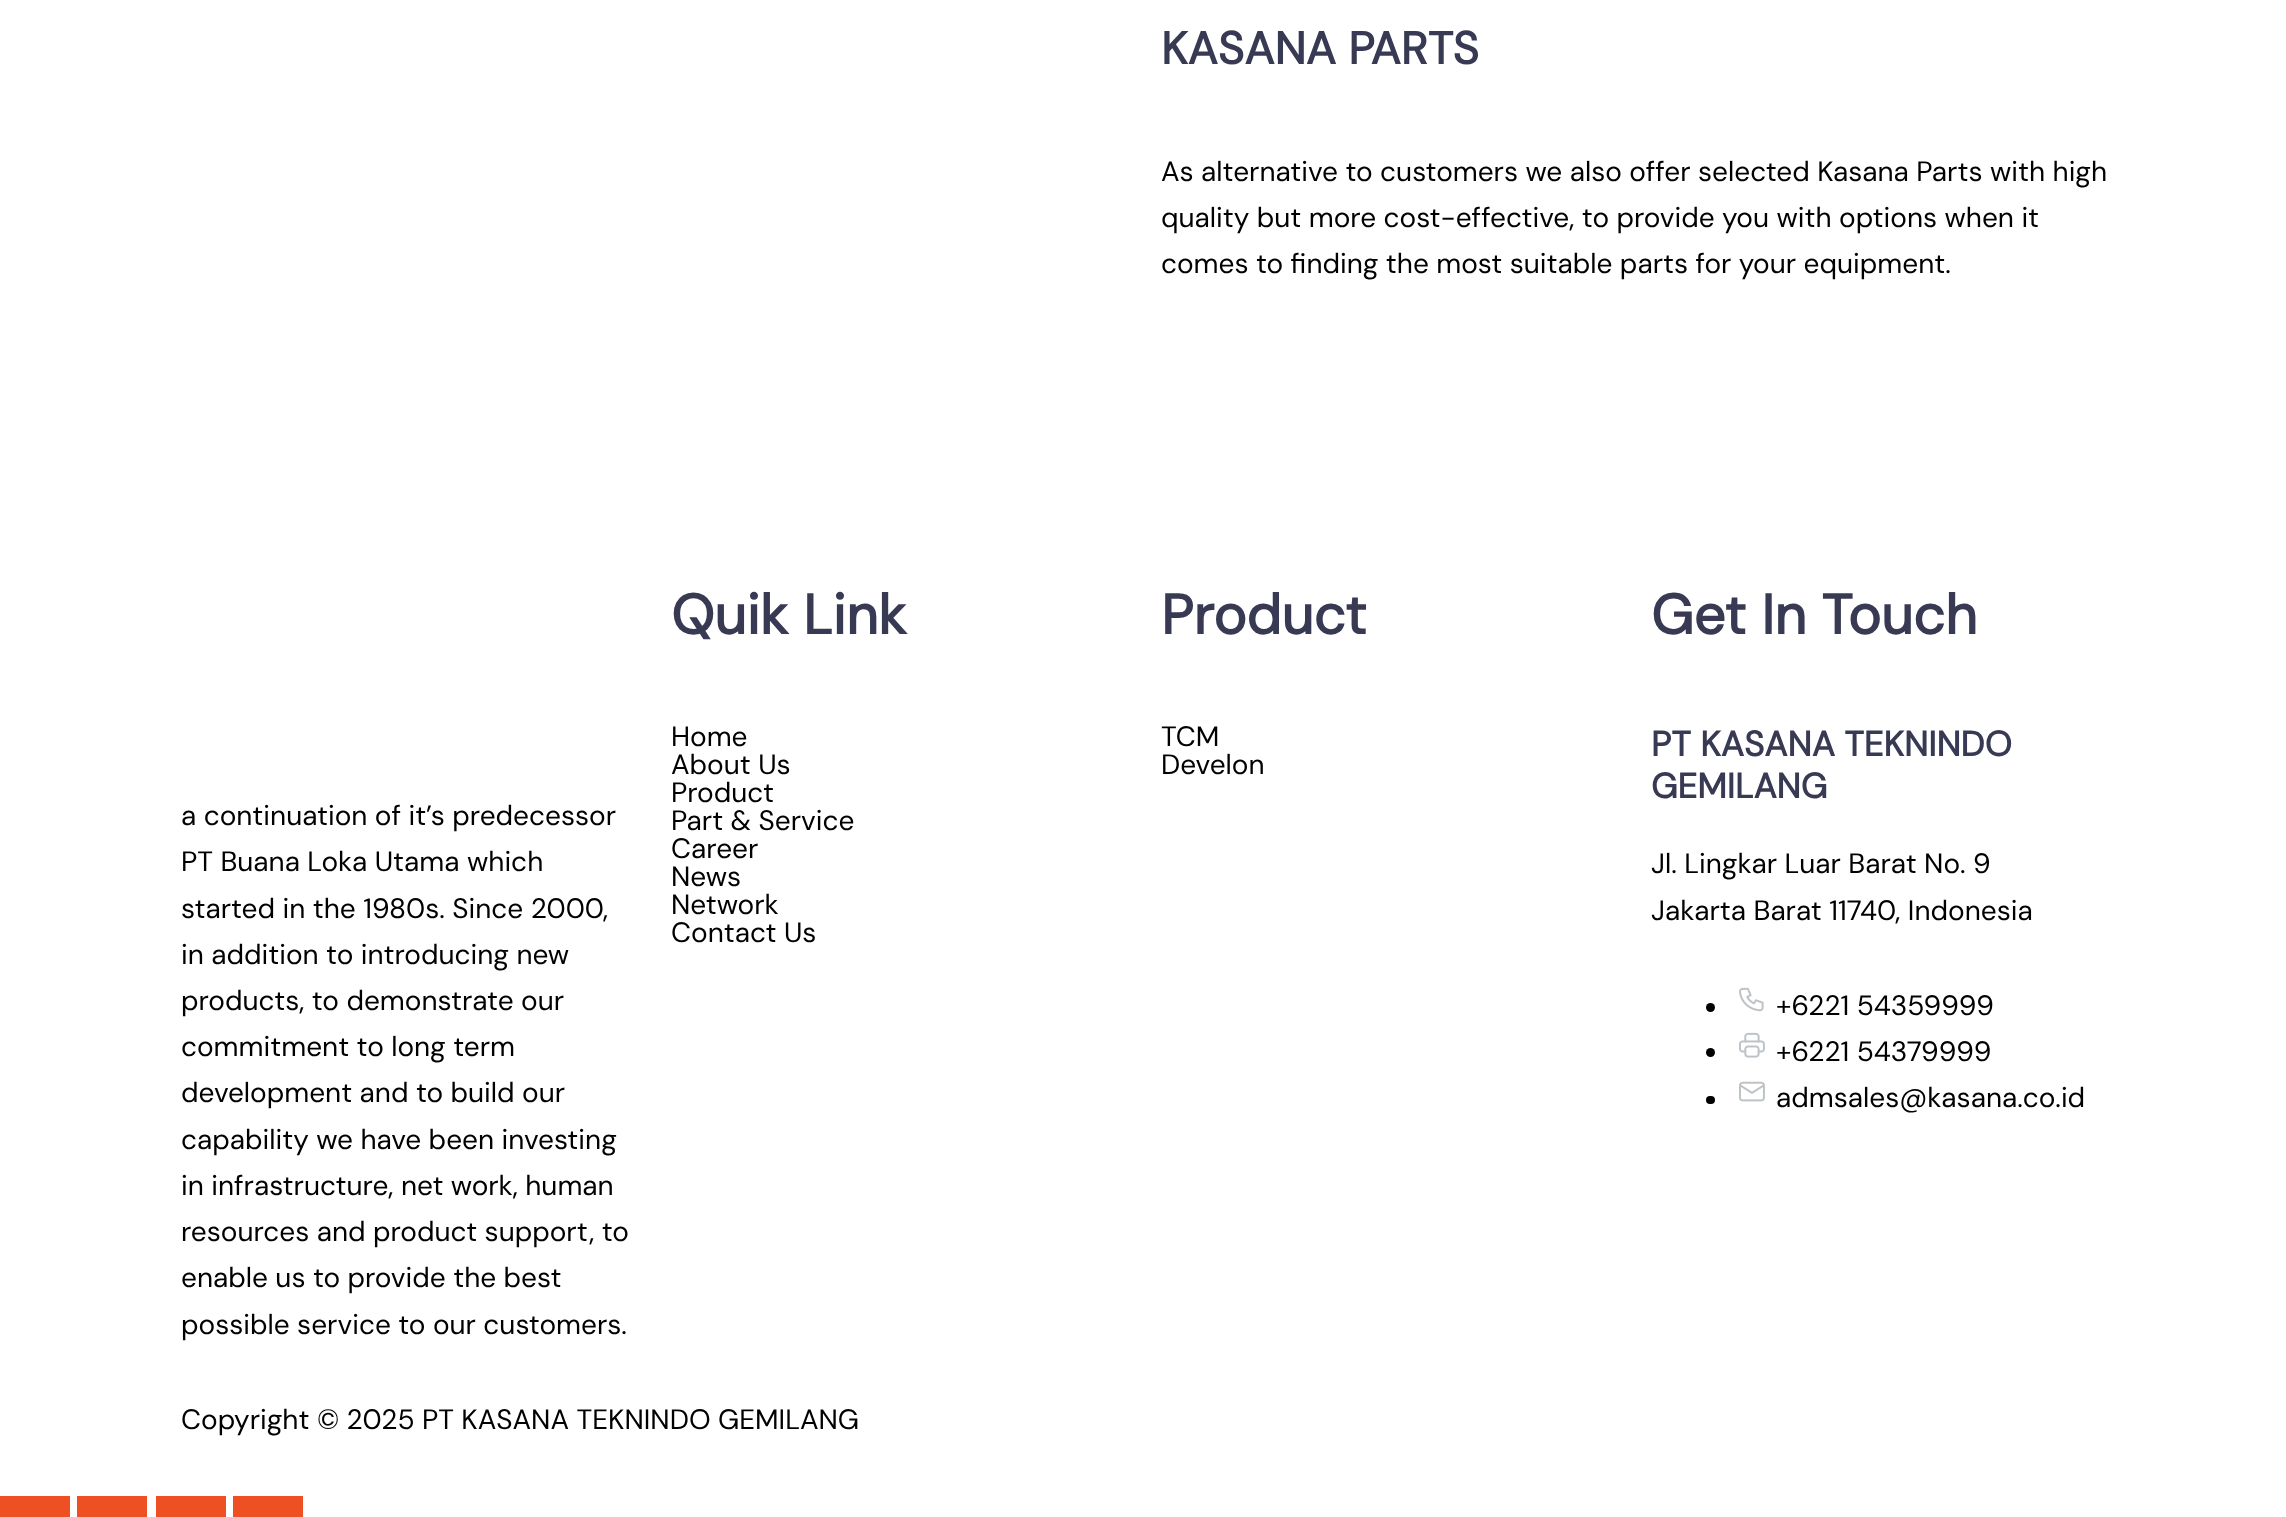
<svg xmlns="http://www.w3.org/2000/svg" width="2286" height="1517" viewBox="0 0 2286 1517">
  <style>
    .t1 { font: bold 45.5px DM Sans; fill: #383a53; }
    .t2 { font: 28px DM Sans; fill: #000; }
    .t3 { font: bold 56px DM Sans; fill: #383a53; }
    .t4 { font: bold 35px DM Sans; fill: #383a53; }
  </style>
  <rect width="100%" height="100%" fill="#fff"/>
  <text x="1161" y="64" class="t1">KASANA PARTS</text>
  <text x="1161" y="181" class="t2">As alternative to customers we also offer selected Kasana Parts with high</text>
  <text x="1161" y="227" class="t2">quality but more cost-effective, to provide you with options when it</text>
  <text x="1161" y="273" class="t2">comes to finding the most suitable parts for your equipment.</text>
  <text x="181" y="825" class="t2">a continuation of it’s predecessor</text>
  <text x="181" y="871" class="t2">PT Buana Loka Utama which</text>
  <text x="181" y="918" class="t2">started in the 1980s. Since 2000,</text>
  <text x="181" y="964" class="t2">in addition to introducing new</text>
  <text x="181" y="1010" class="t2">products, to demonstrate our</text>
  <text x="181" y="1056" class="t2">commitment to long term</text>
  <text x="181" y="1102" class="t2">development and to build our</text>
  <text x="181" y="1149" class="t2">capability we have been investing</text>
  <text x="181" y="1195" class="t2">in infrastructure, net work, human</text>
  <text x="181" y="1241" class="t2">resources and product support, to</text>
  <text x="181" y="1287" class="t2">enable us to provide the best</text>
  <text x="181" y="1334" class="t2">possible service to our customers.</text>
  <text x="671" y="634" class="t3">Quik Link</text>
  <text x="671" y="746" class="t2">Home</text>
  <text x="671" y="774" class="t2">About Us</text>
  <text x="671" y="802" class="t2">Product</text>
  <text x="671" y="830" class="t2">Part &amp; Service</text>
  <text x="671" y="858" class="t2">Career</text>
  <text x="671" y="886" class="t2">News</text>
  <text x="671" y="914" class="t2">Network</text>
  <text x="671" y="942" class="t2">Contact Us</text>
  <text x="1161" y="634" class="t3">Product</text>
  <text x="1161" y="746" class="t2">TCM</text>
  <text x="1161" y="774" class="t2">Develon</text>
  <text x="1651" y="634" class="t3">Get In Touch</text>
  <text x="1651" y="756" class="t4">PT KASANA TEKNINDO</text>
  <text x="1651" y="798" class="t4">GEMILANG</text>
  <text x="1651" y="873" class="t2">Jl. Lingkar Luar Barat No. 9</text>
  <text x="1651" y="920" class="t2">Jakarta Barat 11740, Indonesia</text>
  <circle cx="1710.5" cy="1007.5" r="4.5" fill="#000"/>
  <image x="1739" y="987" width="25" height="25" href="images/1.png"/>
  <text x="1776" y="1015" class="t2">+6221 54359999</text>
  <circle cx="1710.5" cy="1052.5" r="4.5" fill="#000"/>
  <image x="1739" y="1032" width="26" height="26" href="images/2.png"/>
  <text x="1776" y="1061" class="t2">+6221 54379999</text>
  <rect x="1706" y="1096" width="9" height="8" rx="4" fill="#000"/>
  <image x="1739" y="1081" width="26" height="21" href="images/3.png"/>
  <text x="1776" y="1107" class="t2">admsales@kasana.co.id</text>
  <text x="181" y="1429" class="t2">Copyright © 2025 PT KASANA TEKNINDO GEMILANG</text>
  <rect x="0" y="1496" width="70" height="21" fill="#ef5023"/>
  <rect x="77" y="1496" width="70" height="21" fill="#ef5023"/>
  <rect x="156" y="1496" width="70" height="21" fill="#ef5023"/>
  <rect x="233" y="1496" width="70" height="21" fill="#ef5023"/>
</svg>
